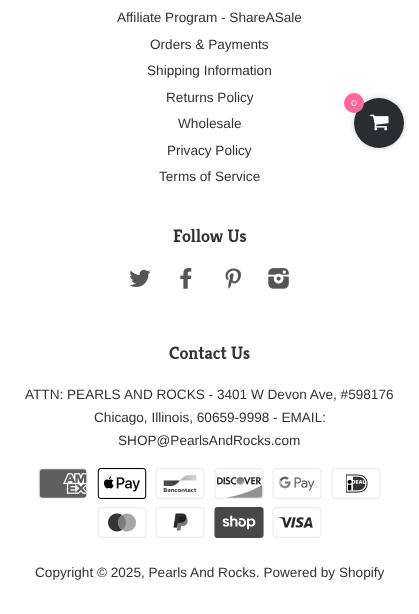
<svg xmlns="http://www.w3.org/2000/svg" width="419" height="614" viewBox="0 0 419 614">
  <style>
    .t1 { font: 13.6px Liberation Sans; fill: #333; }
    .t2 { font: 300 18px Kreon; fill: #333; }
    .t3 { font: 100 10px Raleway; fill: #fff; }
  </style>
  <defs>
    <clipPath id="clip1"><path d="M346 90H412V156H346ZM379 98C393 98 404 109 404 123C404 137 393 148 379 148C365 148 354 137 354 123C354 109 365 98 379 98Z" clip-rule="evenodd"/></clipPath>
  </defs>
  <rect width="100%" height="100%" fill="#fff"/>
  <text x="117" y="22" class="t1">Affiliate Program - ShareASale</text>
  <text x="150" y="49" class="t1">Orders &amp; Payments</text>
  <text x="147" y="75" class="t1">Shipping Information</text>
  <text x="166" y="102" class="t1">Returns Policy</text>
  <text x="178" y="128" class="t1">Wholesale</text>
  <text x="167" y="155" class="t1">Privacy Policy</text>
  <text x="159" y="181" class="t1">Terms of Service</text>
  <text x="173" y="242" class="t2">Follow Us</text>
  <image x="129" y="269" width="22" height="18" href="images/1.png"/>
  <image x="180" y="268" width="12" height="21" href="images/2.png"/>
  <image x="225" y="268" width="16" height="21" href="images/3.png"/>
  <image x="268" y="268" width="21" height="21" href="images/4.png"/>
  <text x="169" y="359" class="t2">Contact Us</text>
  <text x="25" y="399" class="t1">ATTN: PEARLS</text>
  <text x="124" y="399" class="t1">AND ROCKS - 3401 W Devon Ave, #598176</text>
  <text x="94" y="422" class="t1">Chicago, Illinois, 60659-9998 - EMAIL:</text>
  <text x="118" y="445" class="t1">SHOP@PearlsAndRocks.com</text>
  <image x="38" y="468" width="50" height="31" href="images/5.png"/>
  <image x="97" y="468" width="50" height="31" href="images/6.png"/>
  <image x="155" y="468" width="50" height="31" href="images/7.png"/>
  <image x="214" y="468" width="50" height="31" href="images/8.png"/>
  <image x="272" y="468" width="50" height="31" href="images/9.png"/>
  <image x="331" y="468" width="50" height="31" href="images/10.png"/>
  <image x="97" y="507" width="50" height="31" href="images/11.png"/>
  <image x="155" y="507" width="50" height="31" href="images/12.png"/>
  <image x="214" y="507" width="50" height="31" href="images/13.png"/>
  <image x="272" y="507" width="50" height="31" href="images/14.png"/>
  <text x="35" y="577" class="t1">Copyright © 2025, Pearls And Rocks. Powered by Shopify</text>
  <g clip-path="url(#clip1)">
    <rect x="353" y="97" width="52" height="52" rx="26" fill="#03030326" filter="blur(2px)"/>
  </g>
  <circle cx="379" cy="123" r="25" fill="#00050ad6"/>
  <circle cx="354" cy="103" r="10" fill="#f69"/>
  <text x="351" y="106" class="t3">0</text>
  <image x="370" y="114" width="19" height="17" href="images/15.png"/>
</svg>
